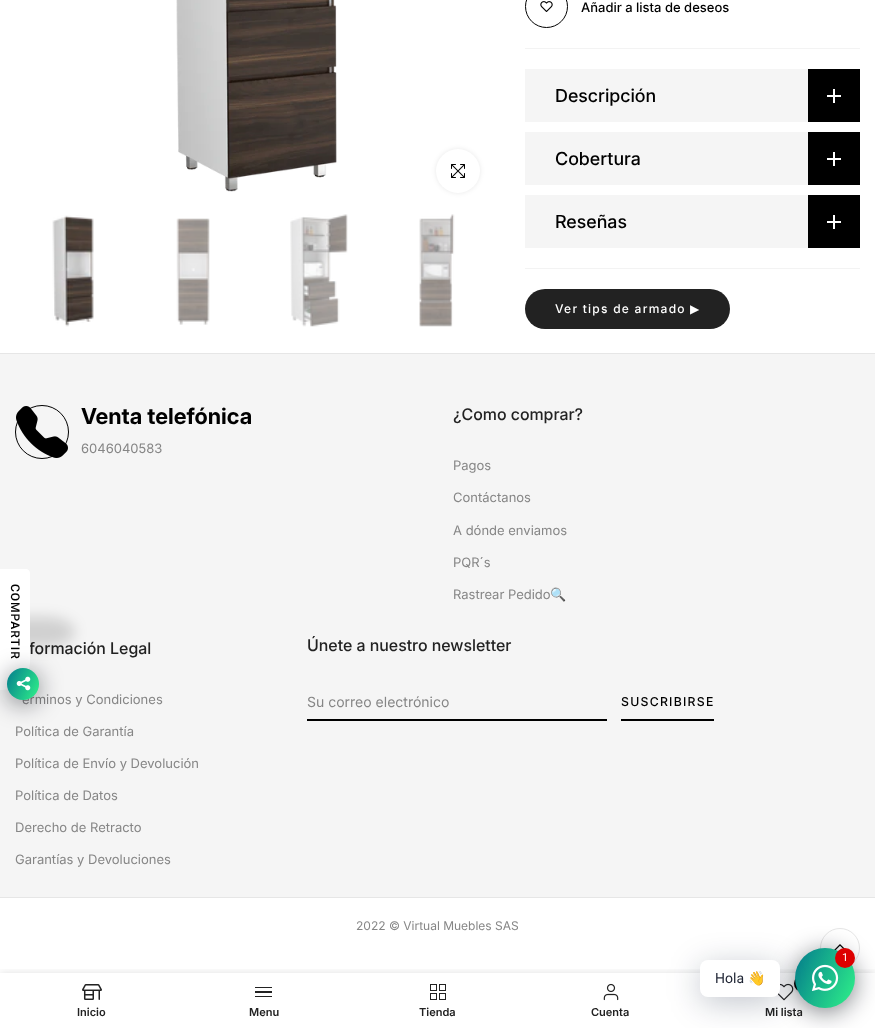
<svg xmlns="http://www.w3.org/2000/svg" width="875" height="1028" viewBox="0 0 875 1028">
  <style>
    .t1 { font: 500 13px Inter; fill: #000; }
    .t2 { font: 500 18px 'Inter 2'; fill: #000; }
    .t3 { font: 500 12px Inter; letter-spacing: 1.25px; fill: #fff; }
    .t4 { font: 12px DejaVu Sans; letter-spacing: 1.25px; fill: #fff; }
    .t5 { font: bold 22px Inter; fill: #000; }
    .t6 { font: 13px Inter; fill: #868686; }
    .t7 { font: 500 16px 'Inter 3'; fill: #222; }
    .t8 { font: 13px Noto Color Emoji; fill: #868686; }
    .t9 { font: 14px Inter; fill: #868686; }
    .t10 { font: 500 12.25px Inter; letter-spacing: 1.25px; fill: #000; }
    .t11 { font: 12px Inter; fill: #868686; }
    .t12 { font: 500 12px Roboto; letter-spacing: 1px; fill: #000; }
    .t13 { font: 600 11px Inter; fill: #222; }
    .t14 { font: 11px Roboto; fill: #fff; }
    .t15 { font: 14px Roboto; fill: #1e2433; }
    .t16 { font: 14px Noto Color Emoji; fill: #1e2433; }
  </style>
  <defs>
    <linearGradient id="g1" gradientUnits="userSpaceOnUse" x1="3.7" y1="675" x2="42" y2="693"><stop offset="0" stop-color="#047c8d"/><stop offset="1" stop-color="#2ff289"/></linearGradient>
    <clipPath id="clip1"><rect x="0" y="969" width="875" height="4"/></clipPath>
    <linearGradient id="g2" gradientUnits="userSpaceOnUse" x1="789" y1="961" x2="861" y2="995"><stop offset="0" stop-color="#047c8d"/><stop offset="1" stop-color="#2ff289"/></linearGradient>
  </defs>
  <rect width="100%" height="100%" fill="#fff"/>
  <image x="176" y="0" width="161" height="192" href="images/1.png"/>
  <rect x="436" y="149" width="44" height="44" rx="22" fill="#00000017" filter="blur(2.5px)"/>
  <circle cx="458" cy="171" r="22" fill="#fff"/>
  <image x="451" y="164" width="14" height="14" href="images/2.png"/>
  <image x="52" y="215" width="42" height="112" href="images/3.png"/>
  <image x="176" y="218" width="34" height="107" href="images/4.png"/>
  <image x="290" y="214" width="58" height="113" href="images/5.png"/>
  <image x="419" y="214" width="36" height="113" href="images/6.png"/>
  <circle cx="546.5" cy="6.5" r="21" fill="none" stroke="#000"/>
  <image x="540" y="1" width="13" height="11" href="images/7.png"/>
  <text x="581" y="12" class="t1">Añadir a lista de deseos</text>
  <rect x="525" y="48" width="335" height="1" fill="#f3f3f3"/>
  <rect x="525" y="268" width="335" height="1" fill="#f3f3f3"/>
  <rect x="525" y="69" width="283" height="53" fill="#f5f5f5"/>
  <text x="555" y="102" class="t2">Descripción</text>
  <rect x="808" y="69" width="52" height="53" fill="#000"/>
  <rect x="833" y="89" width="2" height="14" fill="#fff"/>
  <rect x="827" y="95" width="14" height="2" fill="#fff"/>
  <rect x="525" y="132" width="283" height="53" fill="#f5f5f5"/>
  <text x="555" y="165" class="t2">Cobertura</text>
  <rect x="808" y="132" width="52" height="53" fill="#000"/>
  <rect x="833" y="152" width="2" height="14" fill="#fff"/>
  <rect x="827" y="158" width="14" height="2" fill="#fff"/>
  <rect x="525" y="195" width="283" height="53" fill="#f5f5f5"/>
  <text x="555" y="228" class="t2">Reseñas</text>
  <rect x="808" y="195" width="52" height="53" fill="#000"/>
  <rect x="833" y="215" width="2" height="14" fill="#fff"/>
  <rect x="827" y="221" width="14" height="2" fill="#fff"/>
  <rect x="525" y="289" width="205" height="40" rx="20" fill="#222"/>
  <text x="555" y="313" class="t3">Ver tips de armado</text>
  <text x="690" y="313" class="t4">▶</text>
  <rect x="0" y="354" width="875" height="543" fill="#f5f5f5"/>
  <rect x="0" y="353" width="875" height="1" fill="#e6e6e6"/>
  <circle cx="42" cy="432" r="26.5" fill="none" stroke="#000"/>
  <image x="16" y="406" width="52" height="52" href="images/8.png"/>
  <text x="81" y="424" class="t5">Venta telefónica</text>
  <text x="81" y="453" class="t6">6046040583</text>
  <text x="453" y="420" class="t7">¿Como comprar?</text>
  <text x="453" y="470" class="t6">Pagos</text>
  <text x="453" y="502" class="t6">Contáctanos</text>
  <text x="453" y="535" class="t6">A dónde enviamos</text>
  <text x="453" y="567" class="t6">PQR´s</text>
  <text x="453" y="599" class="t6">Rastrear Pedido</text>
  <text x="550" y="599" class="t8">🔍</text>
  <text x="29" y="654" class="t7">formación Legal</text>
  <text x="22" y="704" class="t6">érminos y Condiciones</text>
  <text x="15" y="736" class="t6">Política de Garantía</text>
  <text x="15" y="768" class="t6">Política de Envío y Devolución</text>
  <text x="15" y="800" class="t6">Política de Datos</text>
  <text x="15" y="832" class="t6">Derecho de Retracto</text>
  <text x="15" y="864" class="t6">Garantías y Devoluciones</text>
  <text x="307" y="651" class="t7">Únete a nuestro newsletter</text>
  <rect x="307" y="719" width="300" height="2" fill="#000"/>
  <text x="307" y="707" class="t9">Su correo electrónico</text>
  <rect x="621" y="719" width="93" height="2" fill="#000"/>
  <text x="621" y="706" class="t10">SUSCRIBIRSE</text>
  <rect x="0" y="897" width="875" height="1" fill="#e6e6e6"/>
  <text x="356" y="930" class="t11">2022 © Virtual Muebles SAS</text>
  <rect x="-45" y="617" width="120" height="30" rx="28" fill="#00000026" filter="blur(7px)"/>
  <path d="M0 690V569H26C28 569 30 571 30 573V662C30 677 17 690 2 690Z" fill="#fff"/>
  <text x="11" y="584" transform="rotate(90 11 584)" class="t12">COMPARTIR</text>
  <rect x="7" y="672" width="32" height="32" rx="16" fill="#02061080" filter="blur(12px)"/>
  <circle cx="23" cy="684" r="16" fill="url(#g1)"/>
  <image x="16" y="676" width="15" height="15" href="images/9.png"/>
  <g clip-path="url(#clip1)">
    <rect x="0" y="973" width="875" height="55" fill="#0000001f" filter="blur(4.5px)"/>
  </g>
  <circle cx="840" cy="948" r="19.5" fill="#fff" stroke="#e6e6e6"/>
  <image x="834" y="944" width="11" height="7" href="images/11.png"/>
  <image x="777" y="983" width="17" height="18" href="images/15.png"/>
  <rect x="795" y="976" width="17" height="17" rx="8.5" fill="#0000004d" filter="blur(1.5px)"/>
  <circle cx="802.5" cy="983.5" r="8.5" fill="#000"/>
  <rect x="795" y="952" width="60" height="60" rx="30" fill="#02061080" filter="blur(12px)"/>
  <text x="765" y="1016" class="t13">Mi lista</text>
  <circle cx="825" cy="978" r="30" fill="url(#g2)"/>
  <rect x="700" y="966" width="80" height="37" rx="8" fill="#00122e3d" filter="blur(16px)"/>
  <image x="812" y="964" width="27" height="27" href="images/10.png"/>
  <circle cx="845" cy="958" r="10" fill="#d00"/>
  <text x="842" y="961" class="t14">1</text>
  <rect x="700" y="960" width="80" height="37" rx="8" fill="#fff"/>
  <text x="715" y="983" class="t15">Hola</text>
  <text x="748" y="983" class="t16">👋</text>
  <image x="82" y="984" width="20" height="16" href="images/12.png"/>
  <text x="77" y="1016" class="t13">Inicio</text>
  <rect x="255" y="987" width="17" height="1" fill="#222"/>
  <rect x="255" y="991" width="17" height="2" fill="#222"/>
  <rect x="255" y="996" width="17" height="1" fill="#222"/>
  <text x="249" y="1016" class="t13">Menu</text>
  <image x="430" y="984" width="16" height="16" href="images/13.png"/>
  <text x="419" y="1016" class="t13">Tienda</text>
  <image x="603" y="983" width="16" height="18" href="images/14.png"/>
  <text x="591" y="1016" class="t13">Cuenta</text>
</svg>
